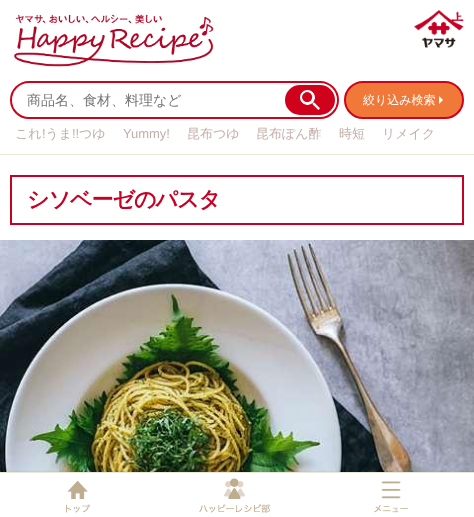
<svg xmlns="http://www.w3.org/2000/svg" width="474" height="517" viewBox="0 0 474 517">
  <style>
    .t1 { font: 500 14px WenQuanYi Zen Hei; fill: #757575; }
    .t2 { font: 500 12px WenQuanYi Zen Hei; fill: #fff; }
    .t3 { font: 500 13px WenQuanYi Zen Hei; fill: #c4ada9; }
    .t4 { font: 13px Liberation Sans; fill: #c4ada9; }
    .t5 { font: bold 22px WenQuanYi Zen Hei; letter-spacing: -1px; fill: #c70025; }
  </style>
  <rect width="100%" height="100%" fill="#fff"/>
  <rect x="0" y="154" width="474" height="1" fill="#e8e8d6"/>
  <image x="14" y="14" width="200" height="53" href="images/1.png"/>
  <image x="414" y="10" width="50" height="38" href="images/2.png"/>
  <rect x="11" y="82" width="327" height="36" rx="18" fill="none" stroke="#d0021b" stroke-width="2"/>
  <text x="27" y="105" class="t1">商品名、食材、料理など</text>
  <rect x="285" y="85" width="50" height="30" rx="15" fill="#d0021b"/>
  <image x="300" y="90" width="20" height="20" href="images/3.png"/>
  <rect x="345" y="82" width="118" height="36" rx="18" fill="#f07939" stroke="#d0021b" stroke-width="2"/>
  <text x="363" y="104" class="t2">絞り込み検索</text>
  <path d="M439 104V96L443 100Z" fill="#fff"/>
  <text x="15" y="138" class="t3">これ うま</text>
  <text x="79" y="138" class="t3">つゆ</text>
  <text x="42" y="138" class="t4">!</text>
  <text x="72" y="138" class="t4">!!</text>
  <text x="123" y="138" class="t4">Yummy!</text>
  <text x="187" y="138" class="t3">昆布つゆ</text>
  <text x="256" y="138" class="t3">昆布ぽん酢</text>
  <text x="339" y="138" class="t3">時短</text>
  <text x="382" y="138" class="t3">リメイク</text>
  <rect x="11" y="176" width="452" height="48" fill="none" stroke="#c70025" stroke-width="2"/>
  <text x="27" y="207" class="t5">シソベーゼのパスタ</text>
  <image x="0" y="240" width="474" height="232" href="images/4.png"/>
  <rect x="0" y="472" width="474" height="45" fill="#0000001a" filter="blur(1px)"/>
  <rect x="0" y="473" width="474" height="44" fill="#fff"/>
  <rect x="0" y="472" width="474" height="1" fill="#e8e8d6"/>
  <image x="66" y="480" width="24" height="33" href="images/5.png"/>
  <image x="199" y="478" width="71" height="35" href="images/6.png"/>
  <image x="374" y="481" width="34" height="32" href="images/7.png"/>
</svg>
